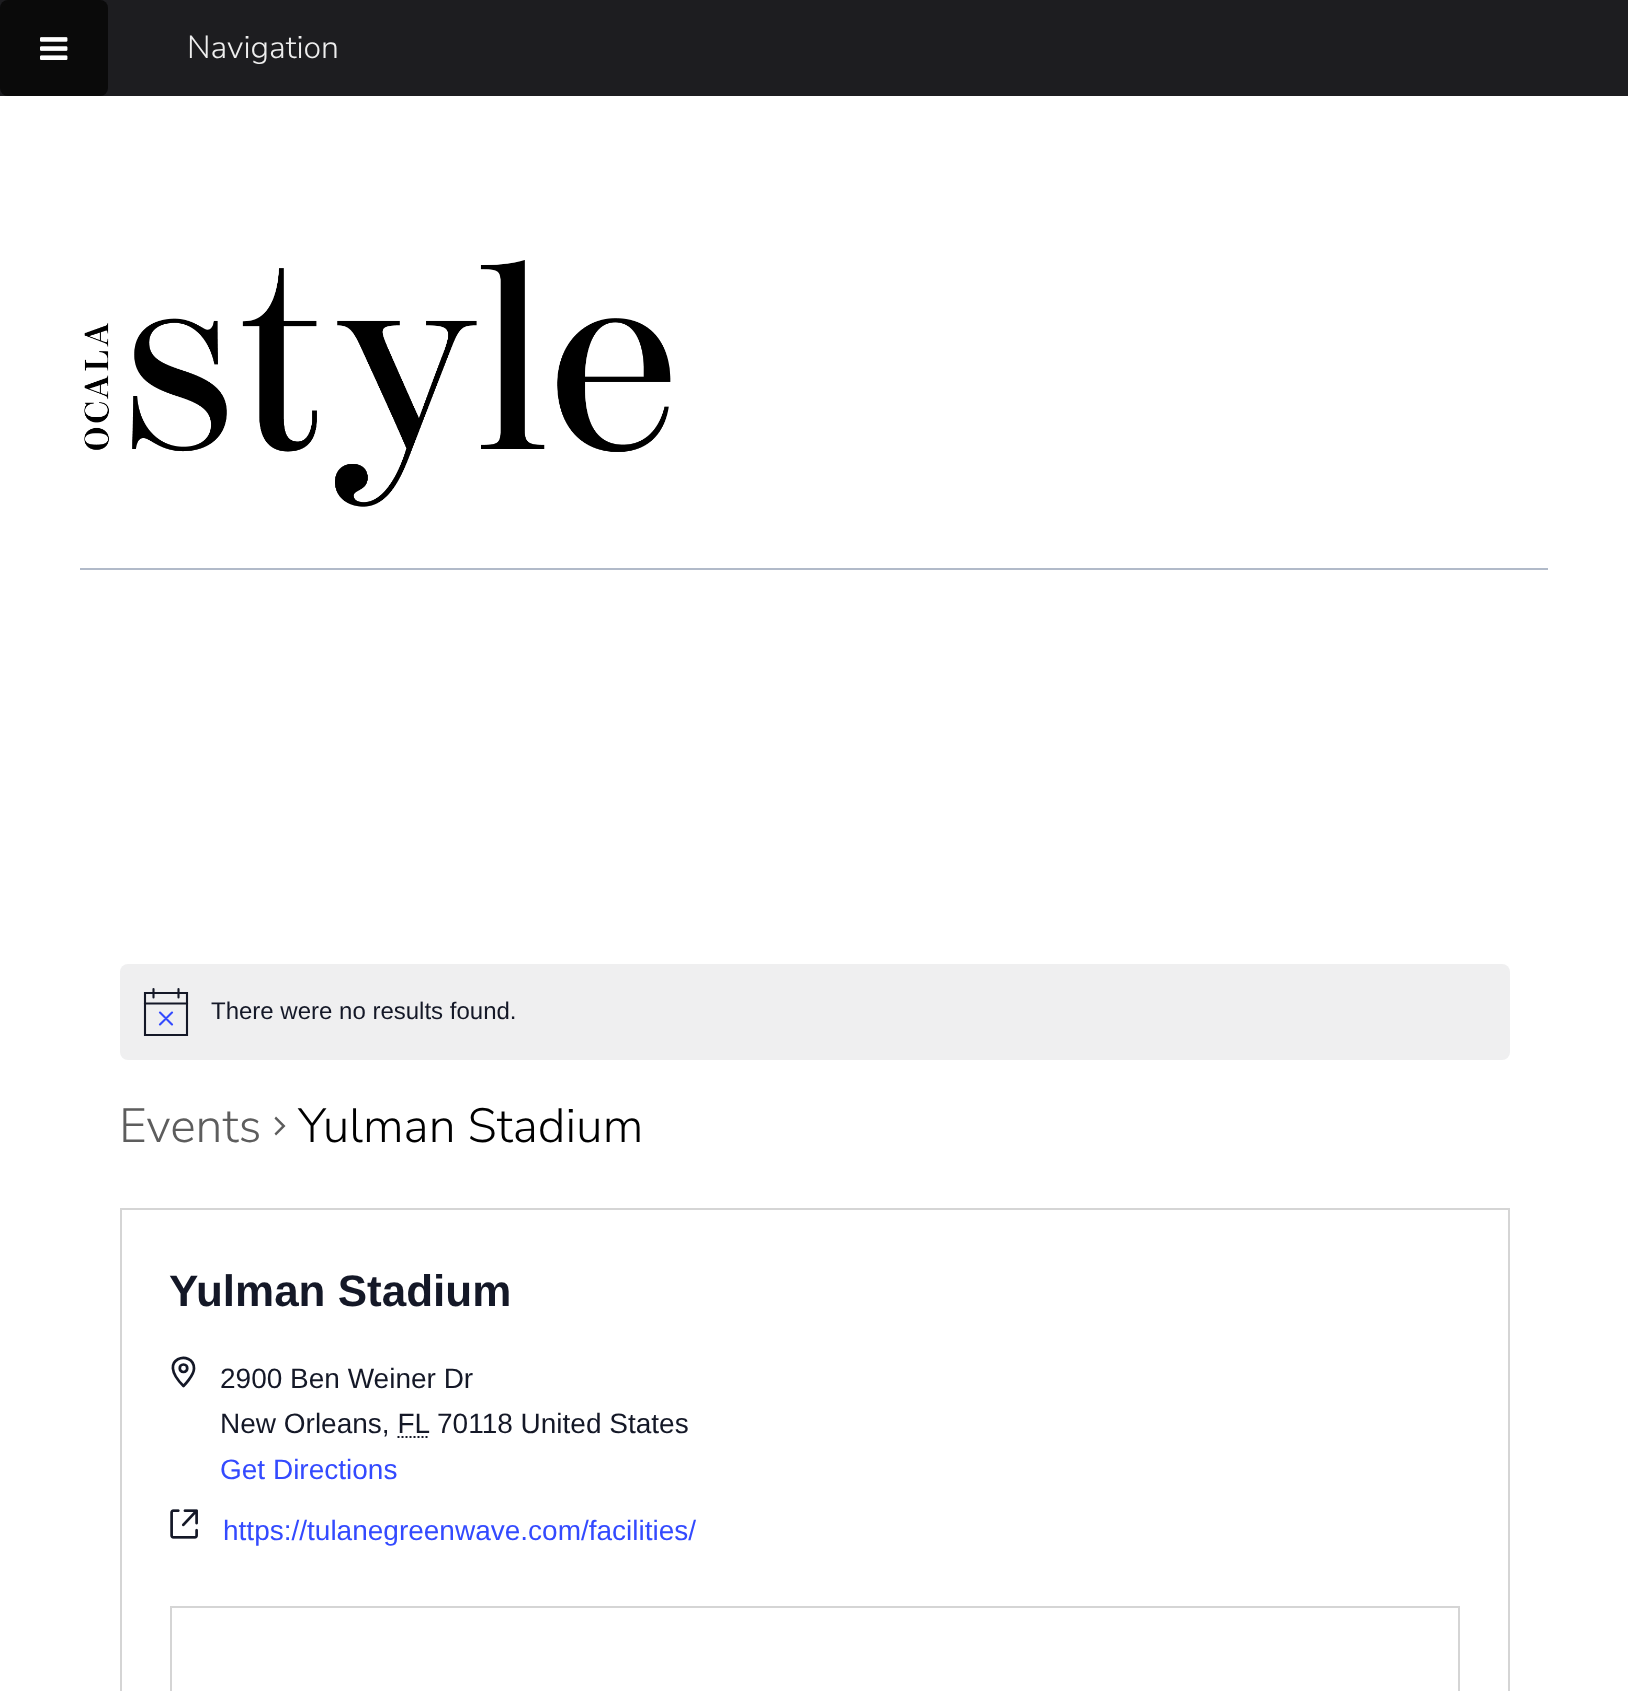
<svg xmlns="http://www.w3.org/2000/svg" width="1628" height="1691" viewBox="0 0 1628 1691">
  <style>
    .t1 { font: 300 32px Nunito Sans; fill: #eee; }
    .t2 { font: 24px Liberation Sans; fill: #141827; }
    .t3 { font: 300 48px Nunito Sans; fill: #5d5d5d; }
    .t4 { font: 300 48px Nunito Sans; fill: #000; }
    .t5 { font: bold 44px Liberation Sans; fill: #141827; }
    .t6 { font: 28px Liberation Sans; fill: #141827; }
    .t7 { font: 28px Liberation Sans; fill: #334aff; }
  </style>
  <rect width="100%" height="100%" fill="#fff"/>
  <rect x="0" y="0" width="1628" height="96" fill="#1d1d20"/>
  <rect x="0" y="0" width="108" height="96" rx="8" fill="#0a0a0a"/>
  <image x="40" y="37" width="28" height="23" href="images/1.png"/>
  <text x="187" y="58" class="t1">Navigation</text>
  <image x="84" y="260" width="587" height="247" href="images/2.png"/>
  <rect x="80" y="568" width="1468" height="2" fill="#b1bac9"/>
  <rect x="120" y="964" width="1390" height="96" rx="8" fill="#efeff0"/>
  <path d="M145 993H187V1035H145Z" fill="none" stroke="#141827" stroke-width="2.1"/>
  <path d="M160 1012.5L172 1024.5M172 1012.5L160 1024.5" fill="none" stroke="#334aff" stroke-width="2.1" stroke-linecap="round"/>
  <path d="M153.5 989V997.5M178.5 989V997.5" fill="none" stroke="#141827" stroke-width="2.1" stroke-linecap="round"/>
  <path d="M145 1003.5H187" fill="none" stroke="#141827" stroke-width="2.1" stroke-linecap="square"/>
  <text x="211" y="1019" class="t2">There were no results found.</text>
  <text x="119" y="1142" class="t3">Events</text>
  <path d="M274.5 1118.5L276 1116.5L285.5 1126L276 1135.5L274.5 1133.5L282 1126Z" fill="#5d5d5d"/>
  <text x="298" y="1142" class="t4">Yulman Stadium</text>
  <rect x="121" y="1209" width="1388" height="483" fill="none" stroke="#d5d5d5" stroke-width="2"/>
  <text x="169" y="1306" class="t5">Yulman Stadium</text>
  <path d="M194 1368.5C194 1375.5 183.5 1386 183.5 1386C154.5 1357.5 194 1349 194 1368.5ZM183.5 1372C188.5 1372 188.5 1364.5 183.5 1364.5C178.5 1364.5 178.5 1372 183.5 1372Z" fill="none" stroke="#141827" stroke-width="2.7" stroke-linecap="round" stroke-linejoin="round"/>
  <text x="220" y="1388" class="t6">2900 Ben Weiner Dr</text>
  <text x="220" y="1433" class="t6">New Orleans, FL</text>
  <text x="437" y="1433" class="t6">70118 United States</text>
  <path d="M397.5 1437H429" fill="none" stroke="#141827" stroke-width="2" stroke-dasharray="2 2"/>
  <text x="220" y="1479" class="t7">Get Directions</text>
  <image x="170" y="1509" width="28" height="30" href="images/3.png"/>
  <text x="223" y="1540" class="t7">https://tulanegreenwave.com/facilities/</text>
  <rect x="171" y="1607" width="1288" height="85" fill="none" stroke="#d5d5d5" stroke-width="2"/>
</svg>
